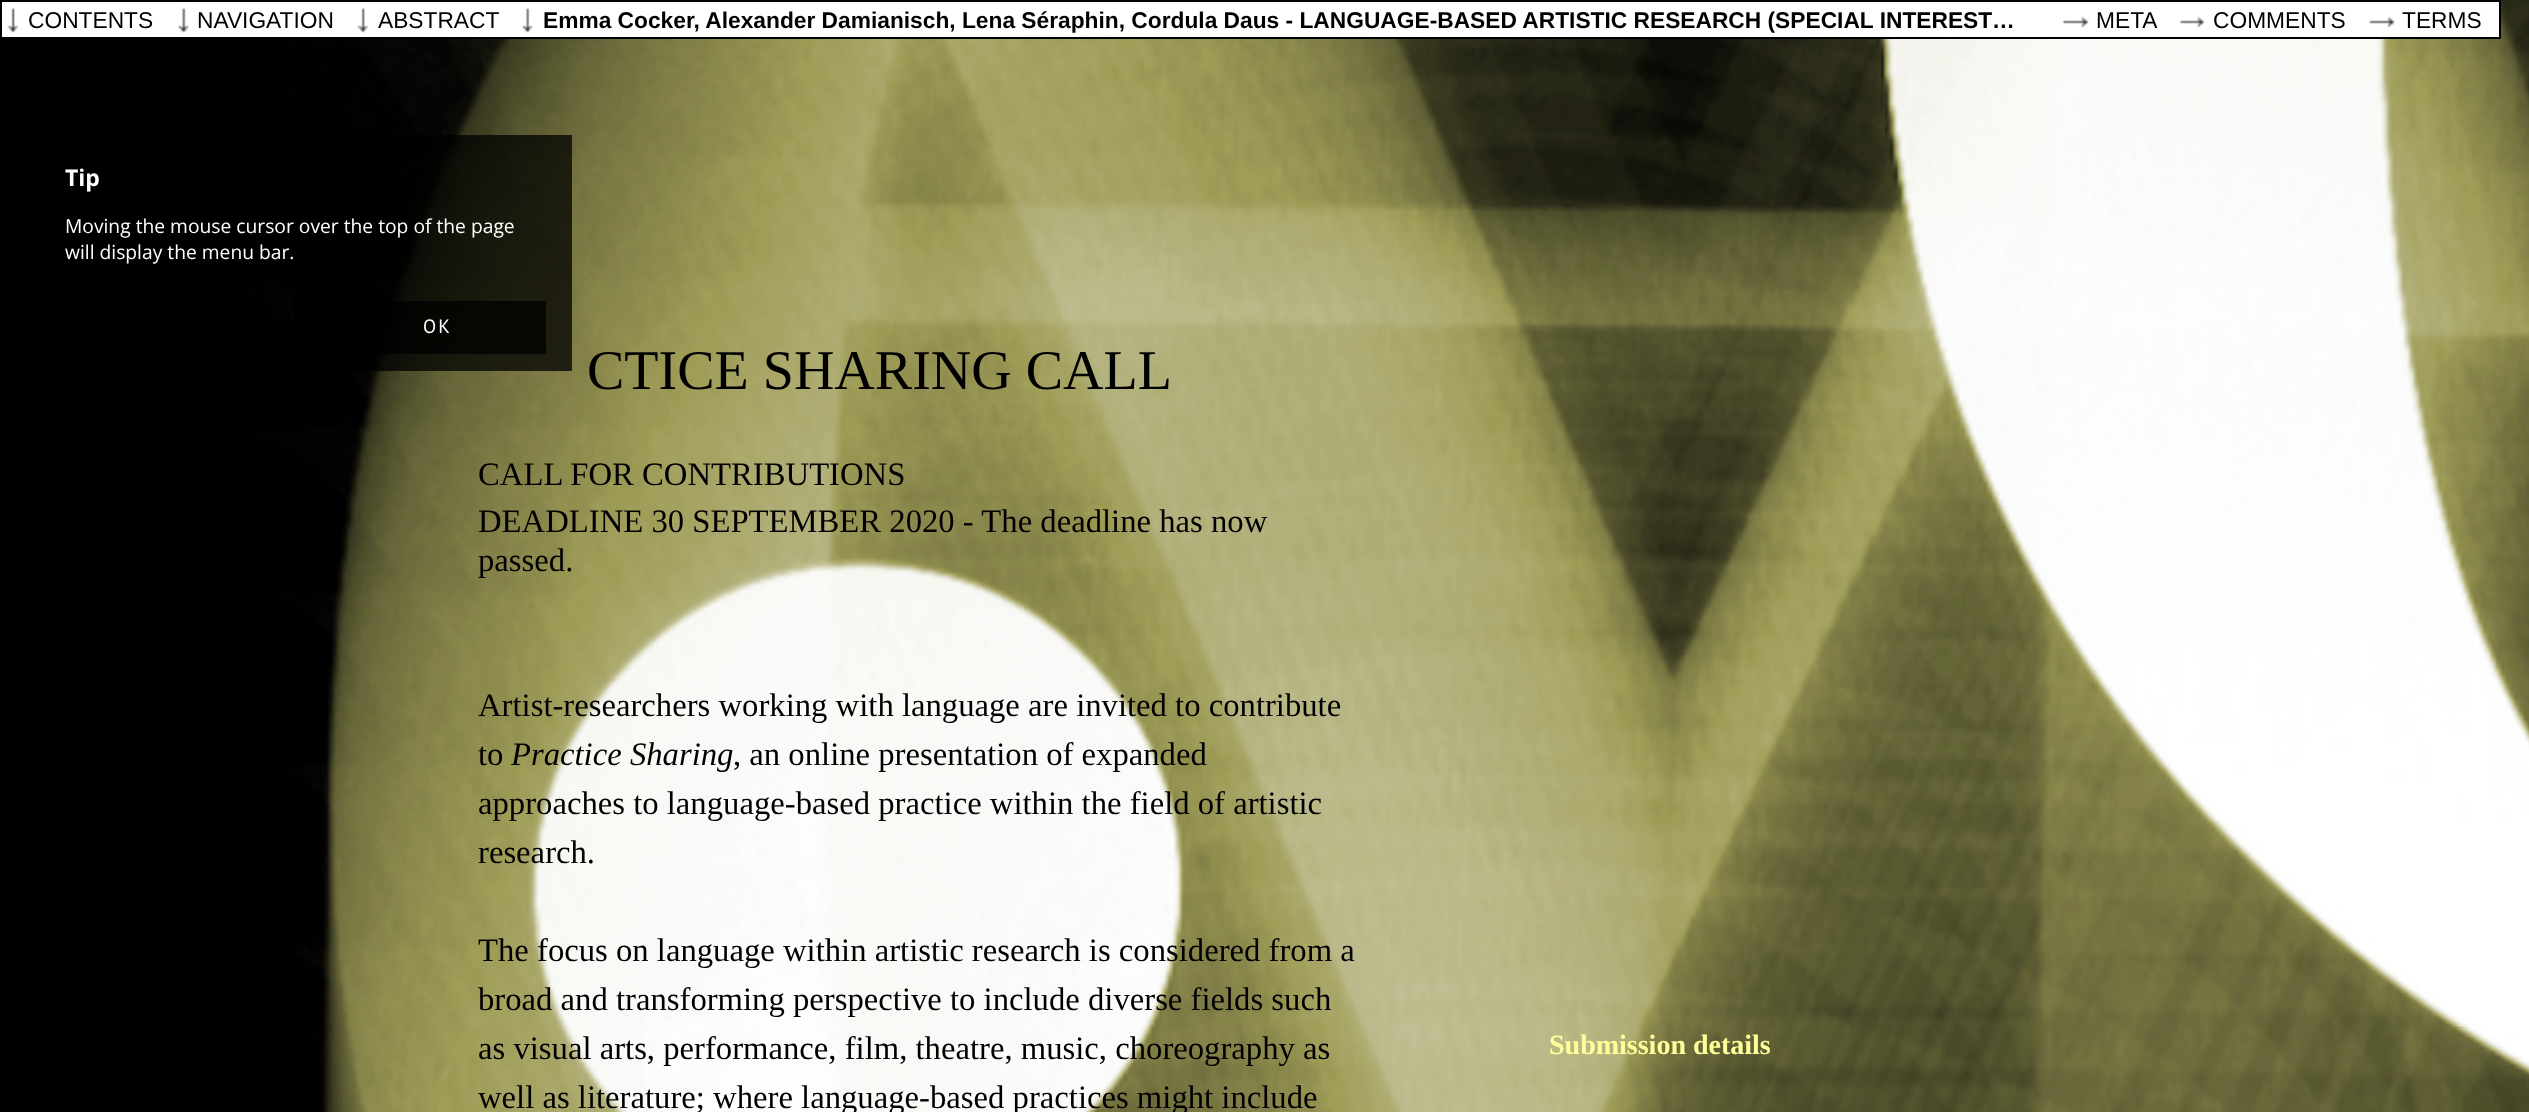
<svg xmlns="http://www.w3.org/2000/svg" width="2529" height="1112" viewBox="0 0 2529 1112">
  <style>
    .t1 { font: 22.75px Liberation Sans; fill: #000; }
    .t2 { font: bold 22.75px Liberation Sans; fill: #000; }
    .t3 { font: bold 23px Open Sans; fill: #fff; }
    .t4 { font: 19.25px Open Sans; fill: #fff; }
    .t5 { font: 19.25px PT Sans; letter-spacing: 2px; fill: #fff; }
    .t6 { font: 56px Liberation Serif; fill: #000; }
    .t7 { font: 32.7px Liberation Serif; fill: #000; }
    .t8 { font: italic 32.7px Liberation Serif; fill: #000; }
    .t9 { font: bold 28px Liberation Serif; fill: #ff9; }
  </style>
  <rect width="100%" height="100%" fill="#fff"/>
  <image x="0" y="0" width="2529" height="1112" href="images/8.png"/>
  <rect x="1" y="1" width="2499" height="37" fill="#fff" stroke="#000" stroke-width="2"/>
  <image x="7" y="7" width="12" height="26" href="images/1.png"/>
  <text x="28" y="28" class="t1">CONTENTS</text>
  <image x="177" y="7" width="12" height="26" href="images/2.png"/>
  <text x="197" y="28" class="t1">NAVIGATION</text>
  <image x="357" y="7" width="12" height="26" href="images/3.png"/>
  <text x="378" y="28" class="t1">ABSTRACT</text>
  <image x="521" y="7" width="12" height="26" href="images/4.png"/>
  <text x="543" y="28" class="t2">Emma Cocker, Alexander Damianisch, Lena Séraphin, Cordula Daus - LANGUAGE-BASED ARTISTIC RESEARCH (SPECIAL INTEREST…</text>
  <image x="2062" y="16" width="27" height="12" href="images/5.png"/>
  <text x="2096" y="28" class="t1">META</text>
  <image x="2179" y="16" width="26" height="12" href="images/6.png"/>
  <text x="2213" y="28" class="t1">COMMENTS</text>
  <image x="2369" y="16" width="26" height="12" href="images/7.png"/>
  <text x="2402" y="28" class="t1">TERMS</text>
  <rect x="293" y="135" width="279" height="236" fill="#000000bf"/>
  <text x="65" y="186" class="t3">Tip</text>
  <text x="65" y="233" class="t4">Moving the mouse cursor over the top of the page</text>
  <text x="65" y="259" class="t4">will display the menu bar.</text>
  <rect x="380" y="301" width="166" height="53" fill="#000000bf"/>
  <text x="423" y="333" class="t5">OK</text>
  <text x="587" y="389" class="t6">CTICE SHARING CALL</text>
  <text x="478" y="485" class="t7">CALL FOR CONTRIBUTIONS</text>
  <text x="478" y="532" class="t7">DEADLINE 30 SEPTEMBER 2020 - The deadline has now</text>
  <text x="478" y="571" class="t7">passed.</text>
  <text x="478" y="716" class="t7">Artist-researchers working with language are invited to contribute</text>
  <text x="478" y="765" class="t7">to</text>
  <text x="511" y="765" class="t8">Practice Sharing</text>
  <text x="733" y="765" class="t7">, an online presentation of expanded</text>
  <text x="478" y="814" class="t7">approaches to language-based practice within the field of artistic</text>
  <text x="478" y="863" class="t7">research.</text>
  <text x="478" y="961" class="t7">The focus on language within artistic research is considered from a</text>
  <text x="478" y="1010" class="t7">broad and transforming perspective to include diverse fields such</text>
  <text x="478" y="1059" class="t7">as visual arts, performance, film, theatre, music, choreography as</text>
  <text x="478" y="1108" class="t7">well as literature; where language-based practices might include</text>
  <text x="1549" y="1054" class="t9">Submission details</text>
</svg>
